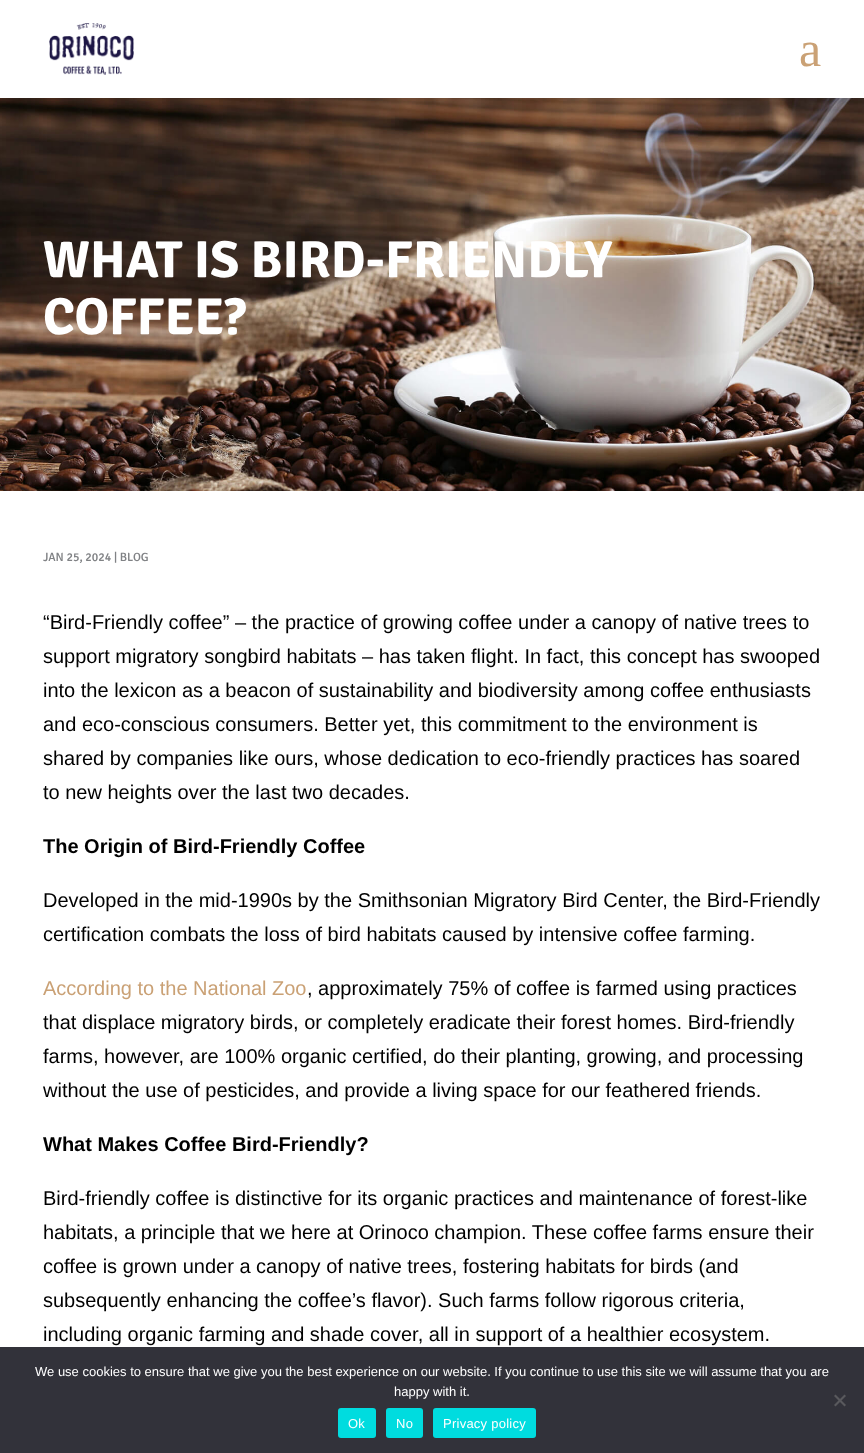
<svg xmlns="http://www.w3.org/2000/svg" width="864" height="1453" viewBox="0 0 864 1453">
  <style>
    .t1 { font: 50px Liberation Serif; fill: #caa175; }
    .t2 { font: bold 52px Signika; fill: #fff; }
    .t3 { font: 500 12px Signika; fill: #808285; }
    .t4 { font: 20px Liberation Sans; fill: #000; }
    .t5 { font: bold 20px Liberation Sans; fill: #000; }
    .t6 { font: 20px Liberation Sans; fill: #caa175; }
    .t7 { font: 13px Liberation Sans; fill: #fff; }
    .t8 { font: 13px Liberation Sans; letter-spacing: 0.25px; fill: #fff; }
  </style>
  <rect width="100%" height="100%" fill="#fff"/>
  <image x="49" y="23" width="85" height="52" href="images/1.png"/>
  <text x="799" y="66" class="t1">a</text>
  <image x="0" y="98" width="864" height="393" href="images/2.png"/>
  <text x="43" y="277" class="t2">WHAT IS BIRD-FRIENDLY</text>
  <text x="43" y="334" class="t2">COFFEE?</text>
  <text x="43" y="561" class="t3">JAN 25, 2024 | BLOG</text>
  <text x="43" y="629" class="t4">“Bird-Friendly coffee” – the practice of growing coffee under a canopy of native trees to</text>
  <text x="43" y="663" class="t4">support migratory songbird habitats – has taken flight. In fact, this concept has swooped</text>
  <text x="43" y="697" class="t4">into the lexicon as a beacon of sustainability and biodiversity among coffee enthusiasts</text>
  <text x="43" y="731" class="t4">and eco-conscious consumers. Better yet, this commitment to the environment is</text>
  <text x="43" y="765" class="t4">shared by companies like ours, whose dedication to eco-friendly practices has soared</text>
  <text x="43" y="799" class="t4">to new heights over the last two decades.</text>
  <text x="43" y="853" class="t5">The Origin of Bird-Friendly Coffee</text>
  <text x="43" y="907" class="t4">Developed in the mid-1990s by the Smithsonian Migratory Bird Center, the Bird-Friendly</text>
  <text x="43" y="941" class="t4">certification combats the loss of bird habitats caused by intensive coffee farming.</text>
  <text x="43" y="995" class="t6">According to the National Zoo</text>
  <text x="307" y="995" class="t4">, approximately 75% of coffee is farmed using practices</text>
  <text x="43" y="1029" class="t4">that displace migratory birds, or completely eradicate their forest homes. Bird-friendly</text>
  <text x="43" y="1063" class="t4">farms, however, are 100% organic certified, do their planting, growing, and processing</text>
  <text x="43" y="1097" class="t4">without the use of pesticides, and provide a living space for our feathered friends.</text>
  <text x="43" y="1151" class="t5">What Makes Coffee Bird-Friendly?</text>
  <text x="43" y="1205" class="t4">Bird-friendly coffee is distinctive for its organic practices and maintenance of forest-like</text>
  <text x="43" y="1239" class="t4">habitats, a principle that we here at Orinoco champion. These coffee farms ensure their</text>
  <text x="43" y="1273" class="t4">coffee is grown under a canopy of native trees, fostering habitats for birds (and</text>
  <text x="43" y="1307" class="t4">subsequently enhancing the coffee’s flavor). Such farms follow rigorous criteria,</text>
  <text x="43" y="1341" class="t4">including organic farming and shade cover, all in support of a healthier ecosystem.</text>
  <rect x="0" y="1347" width="864" height="106" fill="#32323a"/>
  <text x="35" y="1376" class="t7">We use cookies to ensure that we give you the best experience on our website. If you continue to use this site we will assume that you are</text>
  <text x="394" y="1396" class="t7">happy with it.</text>
  <path d="M844.5 1394.5L846 1396L835.5 1406.5L834 1405Z" fill="#59595d"/>
  <path d="M834 1396L835.5 1394.5L846 1405L844.5 1406.5Z" fill="#59595d"/>
  <rect x="338" y="1408" width="38" height="30" rx="3" fill="#00dcdf"/>
  <text x="348" y="1428" class="t8">Ok</text>
  <rect x="386" y="1408" width="37" height="30" rx="3" fill="#00dcdf"/>
  <text x="396" y="1428" class="t8">No</text>
  <rect x="433" y="1408" width="103" height="30" rx="3" fill="#00dcdf"/>
  <text x="443" y="1428" class="t8">Privacy policy</text>
</svg>
